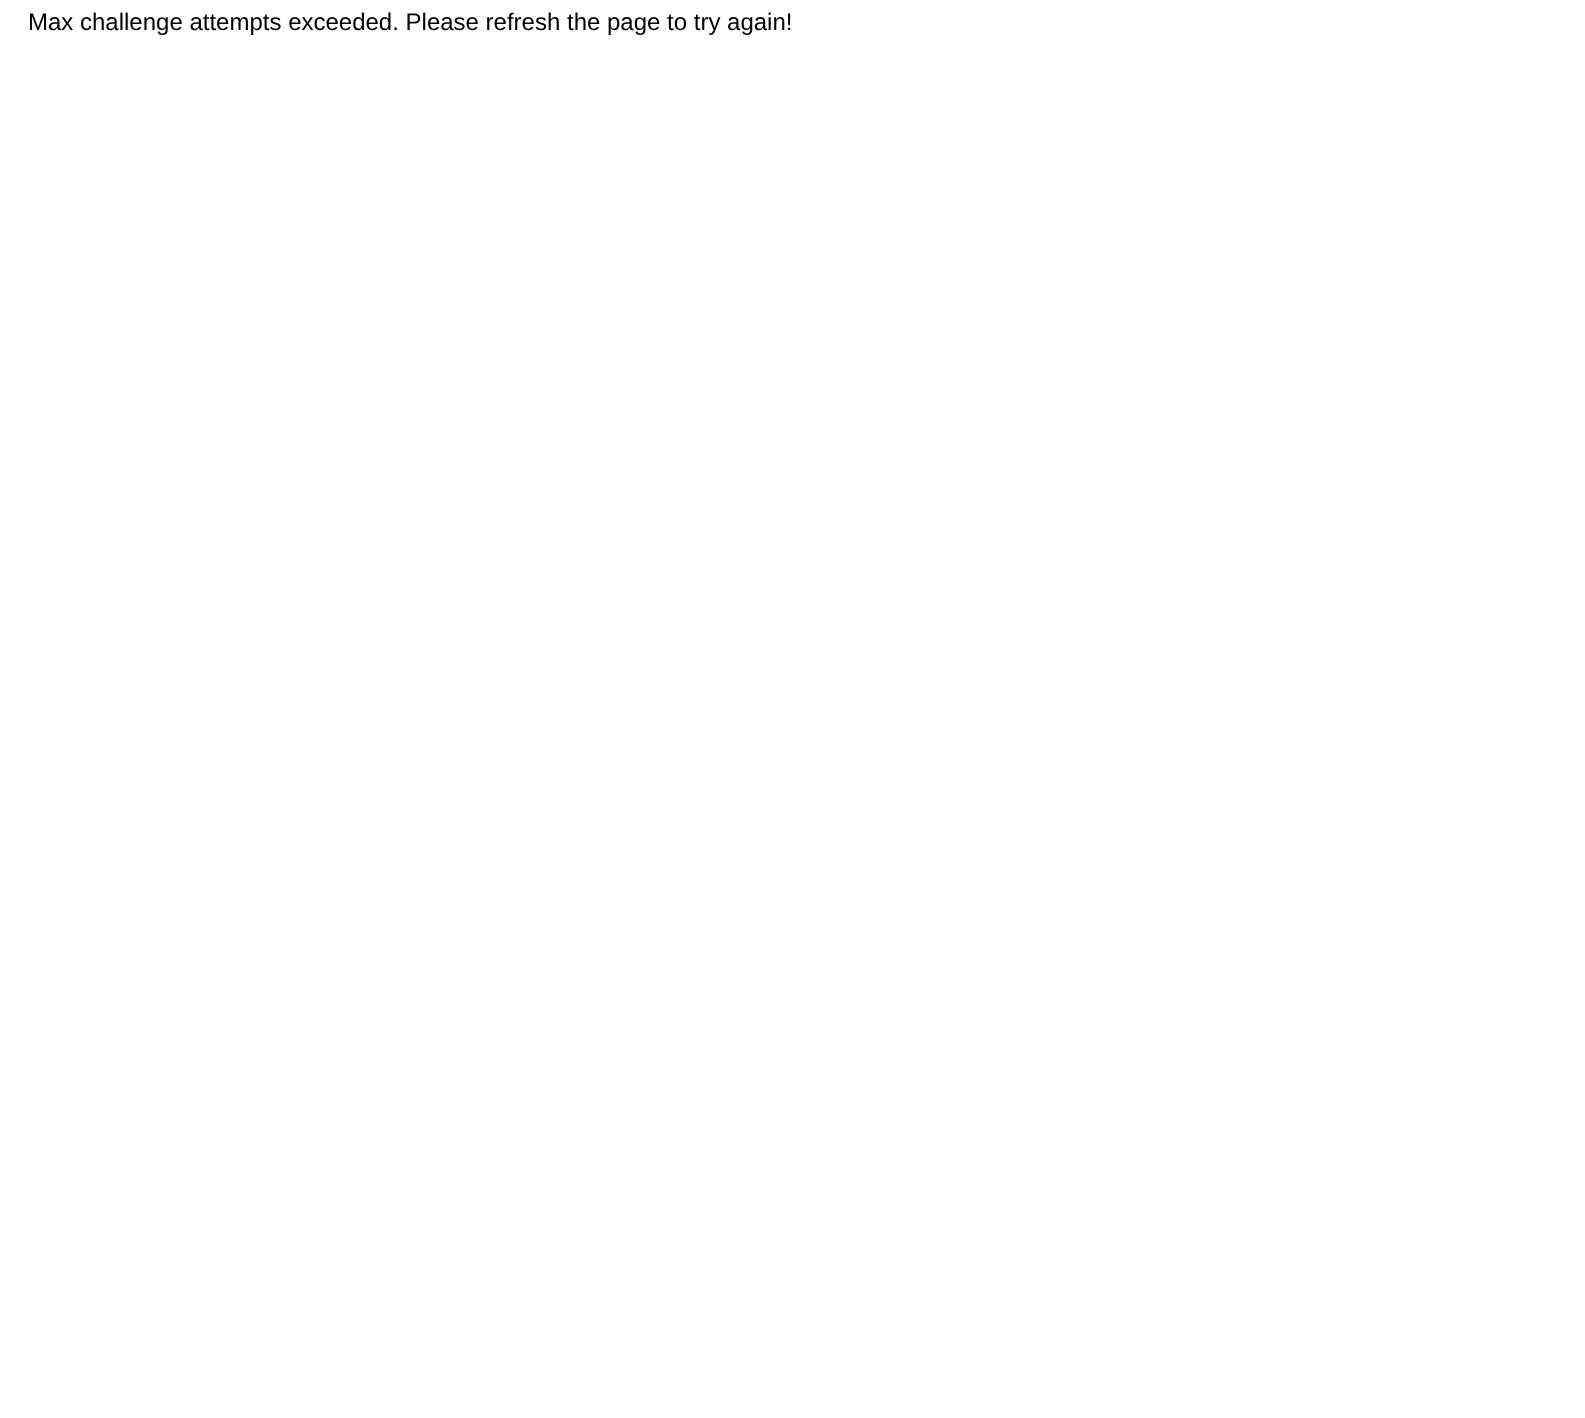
<svg xmlns="http://www.w3.org/2000/svg" width="1585" height="1418" viewBox="0 0 1585 1418">
  <style>
    .t1 { font: 24px Liberation Sans; fill: #000; }
  </style>
  <rect width="100%" height="100%" fill="#fff"/>
  <text x="28" y="30" class="t1">Max challenge attempts exceeded. Please refresh the page to try again!</text>
</svg>
